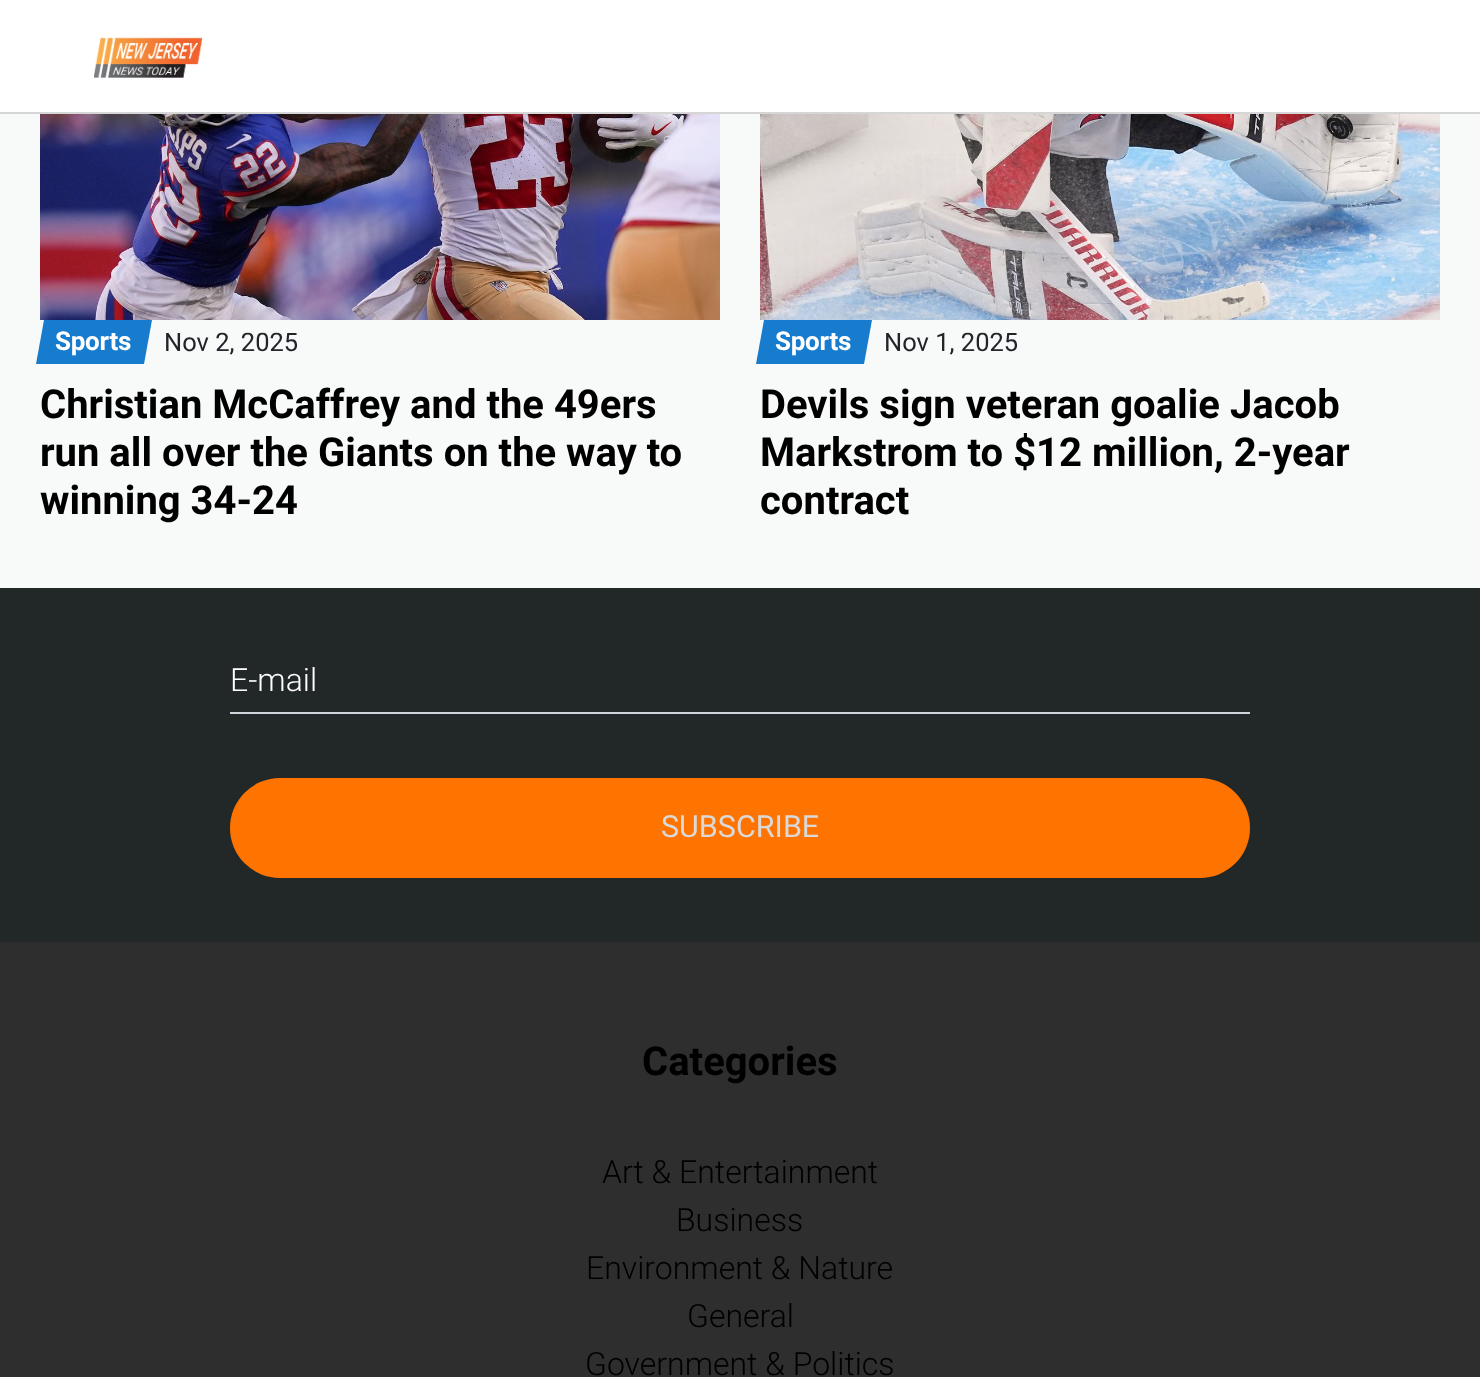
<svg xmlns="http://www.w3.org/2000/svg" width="1480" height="1377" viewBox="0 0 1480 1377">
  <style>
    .t1 { font: bold 26px Roboto; letter-spacing: -0.25px; fill: #fff; }
    .t2 { font: 25.5px Roboto; fill: #212529; }
    .t3 { font: bold 40px Roboto; fill: #000; }
    .t4 { font: 300 32px Roboto; fill: #fff; }
    .t5 { font: 30.5px Roboto; fill: #d9d9d9; }
    .t6 { font: 300 32px Roboto; fill: #000; }
  </style>
  <rect width="100%" height="100%" fill="#f8f9f9"/>
  <rect x="0" y="0" width="1480" height="112" fill="#fff"/>
  <rect x="0" y="112" width="1480" height="2" fill="#d6d6d6"/>
  <image x="94" y="37" width="108" height="41" href="images/1.png"/>
  <image x="40" y="114" width="680" height="206" href="images/2.png"/>
  <path d="M44 320H152L144 364H36Z" fill="#177ccd"/>
  <text x="55" y="350" class="t1">Sports</text>
  <text x="164" y="351" class="t2">Nov 2, 2025</text>
  <text x="40" y="418" class="t3">Christian McCaffrey and the 49ers</text>
  <text x="40" y="466" class="t3">run all over the Giants on the way to</text>
  <text x="40" y="514" class="t3">winning 34-24</text>
  <image x="760" y="114" width="680" height="206" href="images/3.png"/>
  <path d="M764 320H872L864 364H756Z" fill="#177ccd"/>
  <text x="775" y="350" class="t1">Sports</text>
  <text x="884" y="351" class="t2">Nov 1, 2025</text>
  <text x="760" y="418" class="t3">Devils sign veteran goalie Jacob</text>
  <text x="760" y="466" class="t3">Markstrom to $12 million, 2-year</text>
  <text x="760" y="514" class="t3">contract</text>
  <rect x="0" y="588" width="1480" height="354" fill="#212827"/>
  <text x="230" y="691" class="t4">E-mail</text>
  <rect x="230" y="712" width="1020" height="2" fill="#ced4da"/>
  <rect x="230" y="778" width="1020" height="100" rx="50" fill="#ff7300"/>
  <text x="661" y="837" class="t5">SUBSCRIBE</text>
  <rect x="0" y="942" width="1480" height="435" fill="#2e2e2e"/>
  <text x="642" y="1075" class="t3">Categories</text>
  <text x="602" y="1183" class="t6">Art &amp; Entertainment</text>
  <text x="676" y="1231" class="t6">Business</text>
  <text x="586" y="1279" class="t6">Environment &amp; Nature</text>
  <text x="687" y="1327" class="t6">General</text>
  <text x="585" y="1375" class="t6">Government &amp; Politics</text>
</svg>
